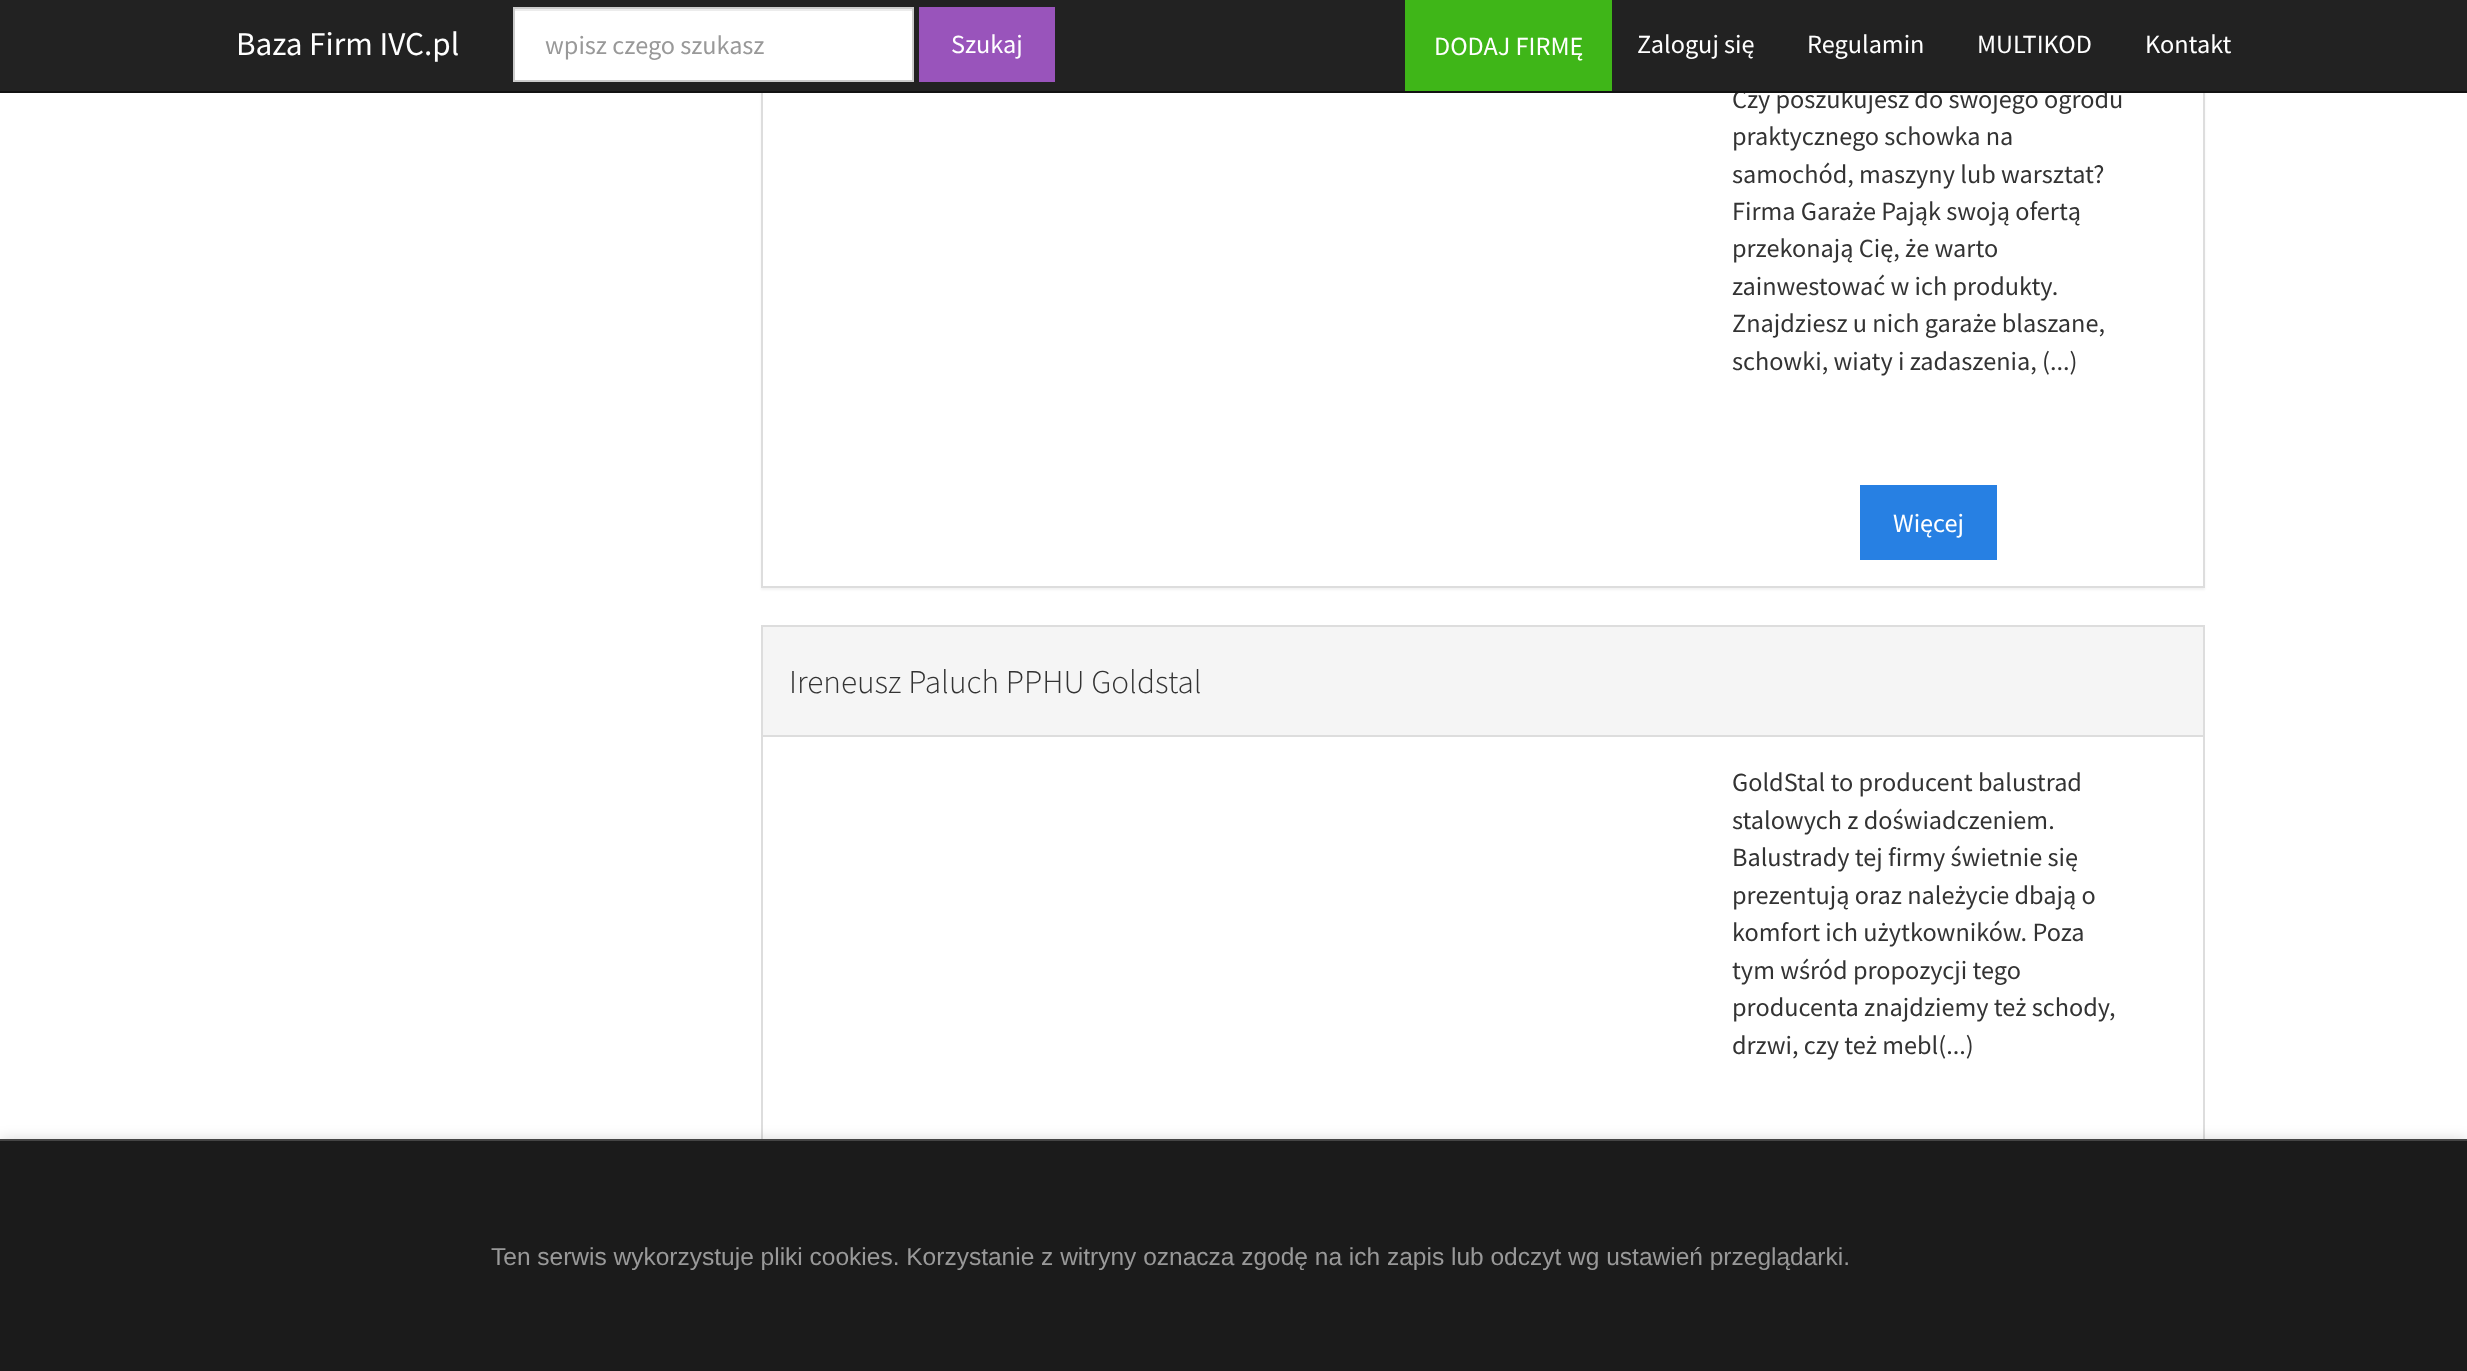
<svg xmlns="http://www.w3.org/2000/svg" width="2467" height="1371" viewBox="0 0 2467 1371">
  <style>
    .t1 { font: 26.25px Source Sans Pro; fill: #333; }
    .t2 { font: 33.25px Source Sans Pro; fill: #fff; }
    .t3 { font: 26.25px Source Sans Pro; fill: #999; }
    .t4 { font: 26.25px Source Sans Pro; fill: #fff; }
    .t5 { font: 300 33.25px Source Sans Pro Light; fill: #333; }
    .t6 { font: 24.5px Liberation Sans; fill: #999; }
  </style>
  <rect width="100%" height="100%" fill="#fff"/>
  <rect x="761" y="-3" width="1444" height="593" fill="#0000000d" filter="blur(1px)"/>
  <rect x="763" y="93" width="1440" height="493" fill="#fff"/>
  <rect x="762" y="-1" width="1442" height="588" fill="none" stroke="#ddd" stroke-width="2"/>
  <text x="1732" y="108" class="t1">Czy poszukujesz do swojego ogrodu</text>
  <rect x="0" y="0" width="2467" height="91" fill="#222"/>
  <rect x="0" y="91" width="2467" height="2" fill="#121212"/>
  <text x="236" y="55" class="t2">Baza Firm IVC.pl</text>
  <rect x="515" y="11" width="397" height="69" fill="#fff"/>
  <rect x="515" y="9" width="397" height="2" fill="#ececec"/>
  <rect x="514" y="8" width="399" height="73" fill="none" stroke="#ccc" stroke-width="2"/>
  <text x="545" y="54" class="t3">wpisz czego szukasz</text>
  <rect x="919" y="7" width="136" height="75" fill="#9954bb"/>
  <text x="951" y="53" class="t4">Szukaj</text>
  <rect x="1405" y="0" width="207" height="91" fill="#3fb618"/>
  <text x="1434" y="55" class="t4">DODAJ FIRMĘ</text>
  <text x="1637" y="53" class="t4">Zaloguj się</text>
  <text x="1807" y="53" class="t4">Regulamin</text>
  <text x="1977" y="53" class="t4">MULTIKOD</text>
  <text x="2145" y="53" class="t4">Kontakt</text>
  <text x="1732" y="145" class="t1">praktycznego schowka na</text>
  <text x="1732" y="183" class="t1">samochód, maszyny lub warsztat?</text>
  <text x="1732" y="220" class="t1">Firma Garaże Pająk swoją ofertą</text>
  <text x="1732" y="257" class="t1">przekonają Cię, że warto</text>
  <text x="1732" y="295" class="t1">zainwestować w ich produkty.</text>
  <text x="1732" y="332" class="t1">Znajdziesz u nich garaże blaszane,</text>
  <text x="1732" y="370" class="t1">schowki, wiaty i zadaszenia, (...)</text>
  <rect x="1860" y="485" width="137" height="75" fill="#2780e3"/>
  <text x="1893" y="532" class="t4">Więcej</text>
  <rect x="762" y="626" width="1442" height="645" fill="none" stroke="#ddd" stroke-width="2"/>
  <rect x="763" y="627" width="1440" height="108" fill="#f5f5f5"/>
  <rect x="763" y="735" width="1440" height="2" fill="#ddd"/>
  <text x="789" y="693" class="t5">Ireneusz Paluch PPHU Goldstal</text>
  <text x="1732" y="791" class="t1">GoldStal to producent balustrad</text>
  <text x="1732" y="829" class="t1">stalowych z doświadczeniem.</text>
  <text x="1732" y="866" class="t1">Balustrady tej firmy świetnie się</text>
  <text x="1732" y="904" class="t1">prezentują oraz należycie dbają o</text>
  <text x="1732" y="941" class="t1">komfort ich użytkowników. Poza</text>
  <text x="1732" y="979" class="t1">tym wśród propozycji tego</text>
  <text x="1732" y="1016" class="t1">producenta znajdziemy też schody,</text>
  <text x="1732" y="1054" class="t1">drzwi, czy też mebl(...)</text>
  <rect x="0" y="1139" width="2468" height="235" fill="#00000026" filter="blur(7px)"/>
  <rect x="0" y="1141" width="2467" height="230" fill="#1b1b1b"/>
  <rect x="0" y="1139" width="2467" height="2" fill="#444"/>
  <text x="491" y="1265" class="t6">Ten serwis wykorzystuje pliki cookies. Korzystanie z witryny oznacza zgodę na ich zapis lub odczyt wg ustawień przeglądarki.</text>
</svg>
